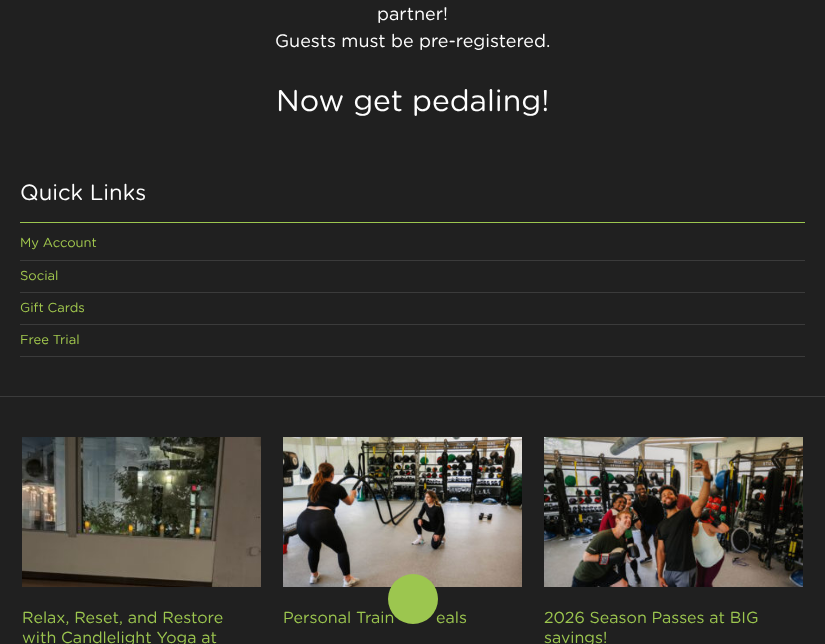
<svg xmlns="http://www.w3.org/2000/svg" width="825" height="644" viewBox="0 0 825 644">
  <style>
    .t1 { font: 18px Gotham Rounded; fill: #fff; }
    .t2 { font: 30px Gotham Rounded; fill: #fff; }
    .t3 { font: 22px Gotham Rounded; fill: #fff; }
    .t4 { font: 13px Gotham Rounded; fill: #a2c84e; }
    .t5 { font: 16px Gotham Rounded; fill: #9cc64f; }
  </style>
  <rect width="100%" height="100%" fill="#202020"/>
  <text x="377" y="20" class="t1">partner!</text>
  <text x="275" y="47" class="t1">Guests must be pre-registered.</text>
  <text x="276" y="111" class="t2">Now get pedaling!</text>
  <rect x="20" y="222" width="785" height="1" fill="#9cc64f"/>
  <text x="20" y="200" class="t3">Quick Links</text>
  <rect x="20" y="260" width="785" height="1" fill="#3b3b3b"/>
  <text x="20" y="247" class="t4">My Account</text>
  <rect x="20" y="292" width="785" height="1" fill="#3b3b3b"/>
  <text x="20" y="280" class="t4">Social</text>
  <rect x="20" y="324" width="785" height="1" fill="#3b3b3b"/>
  <text x="20" y="312" class="t4">Gift Cards</text>
  <rect x="20" y="356" width="785" height="1" fill="#3b3b3b"/>
  <text x="20" y="344" class="t4">Free Trial</text>
  <rect x="0" y="396" width="825" height="1" fill="#3b3b3b"/>
  <image x="22" y="437" width="239" height="150" href="images/1.png"/>
  <text x="22" y="623" class="t5">Relax, Reset, and Restore</text>
  <text x="22" y="643" class="t5">with Candlelight Yoga at</text>
  <image x="283" y="437" width="239" height="150" href="images/2.png"/>
  <text x="283" y="623" class="t5">Personal Train</text>
  <text x="436" y="623" class="t5">eals</text>
  <image x="544" y="437" width="259" height="150" href="images/3.png"/>
  <text x="544" y="623" class="t5">2026 Season Passes at BIG</text>
  <text x="544" y="643" class="t5">savings!</text>
  <circle cx="413" cy="599" r="25" fill="#9cc64f"/>
</svg>
